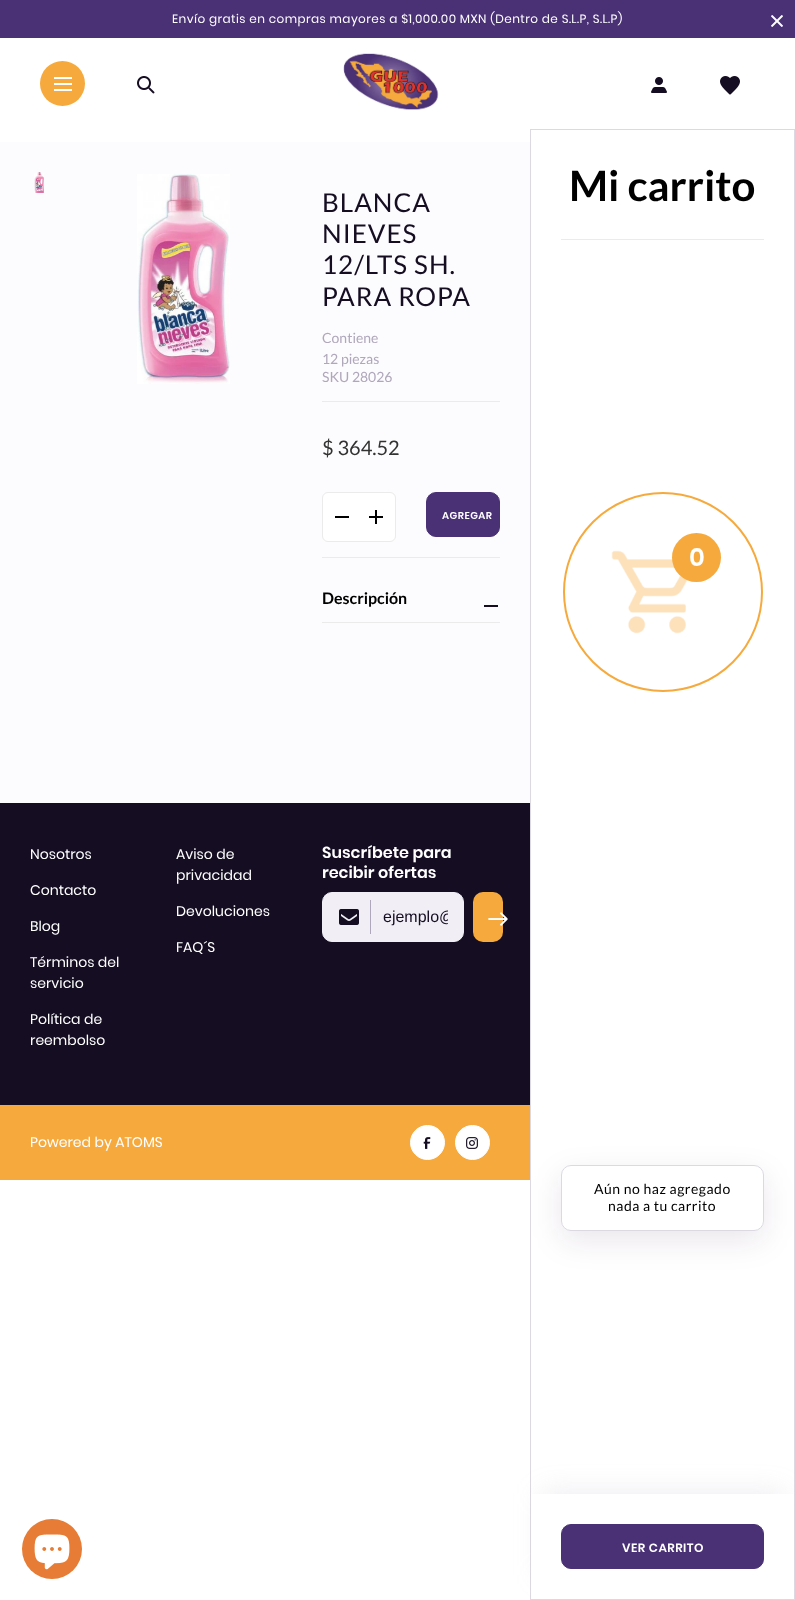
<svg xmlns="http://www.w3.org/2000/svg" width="795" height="1600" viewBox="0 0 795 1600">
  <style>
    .t1 { font: 12px Poppins; letter-spacing: 0.43px; fill: #fff; }
    .t2 { font: bold 42px Lato; fill: #000; }
    .t3 { font: 600 25px Poppins; fill: #fff; }
    .t4 { font: 14px Lato; letter-spacing: 0.5px; fill: #000; }
    .t5 { font: 600 12px Poppins; letter-spacing: 0.5px; fill: #fff; }
    .t6 { font: 26px Lato; letter-spacing: 1px; fill: #150d22; }
    .t7 { font: 14px Lato; fill: #afa7bb; }
    .t8 { font: 20px Lato; fill: #333232; }
    .t9 { font: 600 10px Poppins; letter-spacing: 0.5px; fill: #fff; }
    .t10 { font: bold 16px Lato; fill: #000; }
    .t11 { font: 14px Poppins; fill: #fff; }
    .t12 { font: 600 16px Poppins; fill: #fff; }
    .t13 { font: 16px Liberation Sans; fill: #150d22; }
  </style>
  <defs>
    <clipPath id="clip1"><path d="M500 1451H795V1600H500ZM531 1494H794V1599H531Z" clip-rule="evenodd"/></clipPath>
    <clipPath id="clip2"><rect x="383" y="908" width="65" height="18"/></clipPath>
  </defs>
  <rect width="100%" height="100%" fill="#fff"/>
  <rect x="0" y="0" width="795" height="38" fill="#4a3075"/>
  <text x="172" y="23" class="t1">Envío gratis en compras mayores a $1,000.00 MXN (Dentro de S.L.P, S.L.P)</text>
  <image x="771" y="15" width="12" height="12" href="images/1.png"/>
  <circle cx="62.5" cy="83.5" r="22.5" fill="#f6aa3d"/>
  <rect x="54" y="77" width="18" height="2" fill="#fff"/>
  <rect x="54" y="83" width="18" height="2" fill="#fff"/>
  <rect x="54" y="89" width="18" height="2" fill="#fff"/>
  <image x="137" y="76" width="18" height="18" href="images/2.png"/>
  <image x="343" y="53" width="96" height="57" href="images/3.png"/>
  <image x="651" y="77" width="16" height="16" href="images/4.png"/>
  <image x="720" y="76" width="20" height="19" href="images/5.png"/>
  <rect x="530.5" y="129.5" width="264" height="1470" fill="none" stroke="#ddd9e3"/>
  <text x="569" y="201" class="t2">Mi carrito</text>
  <rect x="561" y="239" width="203" height="1" fill="#ebebeb"/>
  <circle cx="663" cy="592" r="99" fill="none" stroke="#f6aa3d" stroke-width="2"/>
  <image x="611" y="550" width="77" height="84" href="images/6.png"/>
  <circle cx="696.5" cy="557.5" r="24.5" fill="#f6aa3d"/>
  <text x="689" y="566" class="t3">0</text>
  <rect x="0" y="1105" width="530" height="75" fill="#f6aa3d"/>
  <rect x="561" y="1175" width="203" height="66" rx="10" fill="#330e3b1a" filter="blur(15px)"/>
  <rect x="561.5" y="1165.5" width="202" height="65" rx="9.5" fill="#fff" stroke="#ddd9e3"/>
  <text x="594" y="1194" class="t4">Aún no haz agregado</text>
  <text x="608" y="1211" class="t4">nada a tu carrito</text>
  <g clip-path="url(#clip1)">
    <rect x="543" y="1494" width="239" height="81" fill="#afa7bb40" filter="blur(14px)"/>
  </g>
  <rect x="561.5" y="1524.5" width="202" height="44" rx="9.5" fill="#4a3075" stroke="#4a3075"/>
  <text x="622" y="1552" class="t5">VER CARRITO</text>
  <rect x="0" y="142" width="530" height="661" fill="#fcfbfd"/>
  <image x="34" y="172" width="10" height="21" href="images/7.png"/>
  <image x="137" y="174" width="93" height="210" href="images/8.png"/>
  <text x="322" y="212" class="t6">BLANCA</text>
  <text x="322" y="243" class="t6">NIEVES</text>
  <text x="322" y="274" class="t6">12/LTS SH.</text>
  <text x="322" y="306" class="t6">PARA ROPA</text>
  <rect x="322" y="401" width="178" height="1" fill="#ebebeb"/>
  <text x="322" y="343" class="t7">Contiene</text>
  <text x="322" y="364" class="t7">12 piezas</text>
  <text x="322" y="382" class="t7">SKU 28026</text>
  <text x="322" y="455" class="t8">$ 364.52</text>
  <rect x="322" y="557" width="178" height="1" fill="#ebebeb"/>
  <rect x="322.5" y="492.5" width="73" height="49" rx="5.5" fill="#fff" stroke="#ebebeb"/>
  <rect x="335" y="516" width="14" height="2" fill="#000"/>
  <rect x="375" y="510" width="2" height="14" fill="#000"/>
  <rect x="369" y="516" width="14" height="2" fill="#000"/>
  <rect x="426.5" y="492.5" width="73" height="44" rx="9.5" fill="#4a3075" stroke="#4a3075"/>
  <text x="442" y="519" class="t9">AGREGAR</text>
  <rect x="322" y="622" width="178" height="1" fill="#ebebeb"/>
  <text x="322" y="604" class="t10">Descripción</text>
  <rect x="484" y="605" width="14" height="2" fill="#150d22"/>
  <rect x="0" y="803" width="530" height="302" fill="#150d22"/>
  <text x="30" y="859" class="t11">Nosotros</text>
  <text x="30" y="895" class="t11">Contacto</text>
  <text x="30" y="931" class="t11">Blog</text>
  <text x="30" y="967" class="t11">Términos del</text>
  <text x="30" y="988" class="t11">servicio</text>
  <text x="30" y="1024" class="t11">Política de</text>
  <text x="30" y="1045" class="t11">reembolso</text>
  <text x="176" y="859" class="t11">Aviso de</text>
  <text x="176" y="880" class="t11">privacidad</text>
  <text x="176" y="916" class="t11">Devoluciones</text>
  <text x="176" y="952" class="t11">FAQ´S</text>
  <text x="322" y="858" class="t12">Suscríbete para</text>
  <text x="322" y="878" class="t12">recibir ofertas</text>
  <rect x="322.5" y="892.5" width="141" height="49" rx="9.5" fill="#f1eef5" stroke="#f1eef5"/>
  <image x="339" y="909" width="20" height="16" href="images/9.png"/>
  <rect x="370" y="900" width="1" height="34" fill="#afa7bb"/>
  <g clip-path="url(#clip2)">
    <text x="383" y="922" class="t13">ejemplo@</text>
  </g>
  <rect x="473" y="892" width="30" height="50" rx="10" fill="#f6aa3d"/>
  <image x="488" y="912" width="20" height="14" href="images/10.png"/>
  <text x="30" y="1147" class="t11">Powered by ATOMS</text>
  <circle cx="427.5" cy="1142.5" r="17" fill="#fff" stroke="#fff"/>
  <image x="423" y="1137" width="8" height="12" href="images/11.png"/>
  <circle cx="472.5" cy="1142.5" r="17" fill="#fff" stroke="#fff"/>
  <image x="466" y="1137" width="12" height="12" href="images/12.png"/>
  <circle cx="52" cy="1549" r="30" fill="#e67c35"/>
  <image x="34" y="1534" width="36" height="36" href="images/13.png"/>
</svg>
